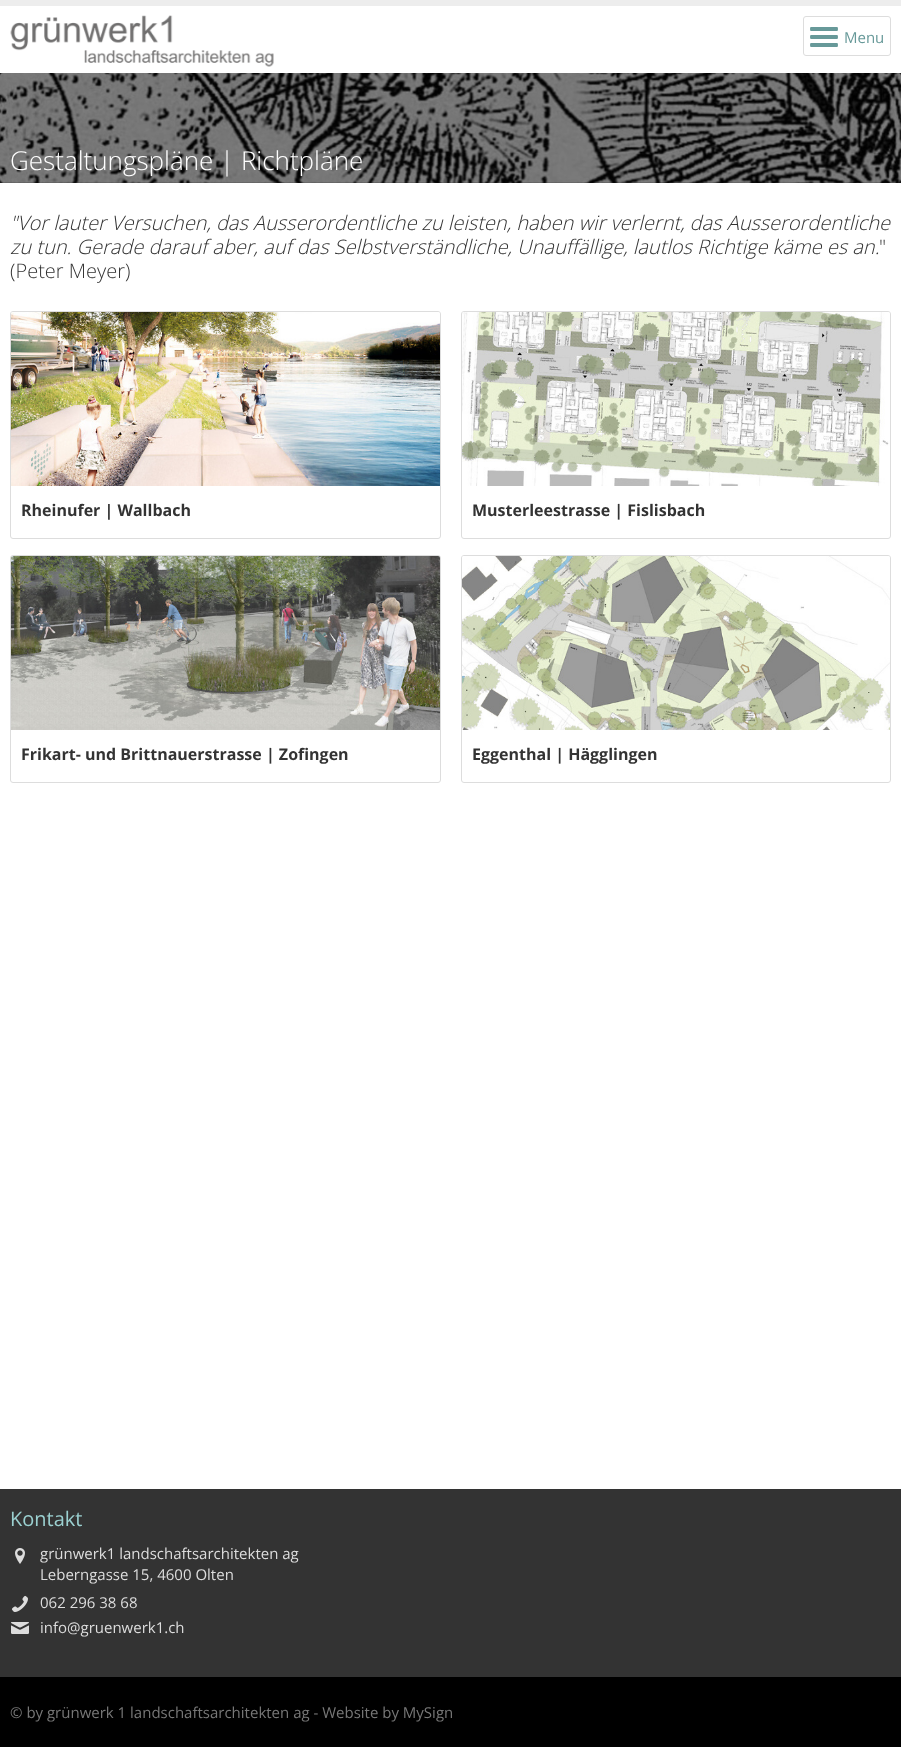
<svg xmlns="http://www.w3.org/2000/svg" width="901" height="1747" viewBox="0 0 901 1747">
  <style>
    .t1 { font: 15px Open Sans; fill: #679999; }
    .t2 { font: 300 26px Open Sans; fill: #fff; }
    .t3 { font: italic 300 20px Open Sans; fill: #333; }
    .t4 { font: 300 20px Open Sans; fill: #333; }
    .t5 { font: bold 16px Open Sans; fill: #333; }
    .t6 { font: 20px Open Sans; fill: #9bd0d0; }
    .t7 { font: 15px Open Sans; fill: #ddd; }
    .t8 { font: 15px Open Sans; fill: #777; }
  </style>
  <rect width="100%" height="100%" fill="#fff"/>
  <rect x="0" y="0" width="901" height="6" fill="#ededed"/>
  <image x="10" y="15" width="264" height="52" href="images/1.png"/>
  <rect x="803.5" y="16.5" width="87" height="39" rx="2.5" fill="none" stroke="#ddd"/>
  <image x="810" y="27" width="28" height="20" href="images/2.png"/>
  <text x="844" y="43" class="t1">Menu</text>
  <rect x="0" y="73" width="901" height="110" fill="#1a1a1a"/>
  <image x="0" y="73" width="901" height="110" href="images/3.png"/>
  <text x="10" y="170" class="t2">Gestaltungspläne | Richtpläne</text>
  <text x="10" y="230" class="t3">"Vor lauter Versuchen, das Ausserordentliche zu leisten, haben wir verlernt, das Ausserordentliche</text>
  <text x="10" y="254" class="t3">zu tun. Gerade darauf aber, auf das Selbstverständliche, Unauffällige, lautlos Richtige käme es an.</text>
  <text x="879" y="254" class="t4">"</text>
  <text x="10" y="278" class="t4">(Peter Meyer)</text>
  <rect x="10.5" y="311.5" width="430" height="227" rx="2.5" fill="none" stroke="#ddd"/>
  <image x="11" y="312" width="429" height="174" href="images/4.png"/>
  <text x="21" y="516" class="t5">Rheinufer | Wallbach</text>
  <rect x="461.5" y="311.5" width="429" height="227" rx="2.5" fill="none" stroke="#ddd"/>
  <image x="462" y="312" width="428" height="174" href="images/5.png"/>
  <text x="472" y="516" class="t5">Musterleestrasse | Fislisbach</text>
  <rect x="10.5" y="555.5" width="430" height="227" rx="2.5" fill="none" stroke="#ddd"/>
  <image x="11" y="556" width="429" height="174" href="images/6.png"/>
  <text x="21" y="760" class="t5">Frikart- und Brittnauerstrasse | Zofingen</text>
  <rect x="461.5" y="555.5" width="429" height="227" rx="2.5" fill="none" stroke="#ddd"/>
  <image x="462" y="556" width="428" height="174" href="images/7.png"/>
  <text x="472" y="760" class="t5">Eggenthal | Hägglingen</text>
  <rect x="0" y="1489" width="901" height="188" fill="#333"/>
  <text x="10" y="1526" class="t6">Kontakt</text>
  <image x="15" y="1548" width="10" height="16" href="images/8.png"/>
  <text x="40" y="1559" class="t7">grünwerk1 landschaftsarchitekten ag</text>
  <text x="40" y="1580" class="t7">Leberngasse 15, 4600 Olten</text>
  <image x="11" y="1595" width="17" height="17" href="images/9.png"/>
  <text x="40" y="1608" class="t7">062 296 38 68</text>
  <image x="11" y="1622" width="18" height="12" href="images/10.png"/>
  <text x="40" y="1633" class="t7">info@gruenwerk1.ch</text>
  <rect x="0" y="1677" width="901" height="70" fill="#000"/>
  <text x="10" y="1718" class="t8">© by grünwerk 1 landschaftsarchitekten ag - Website by MySign</text>
</svg>
